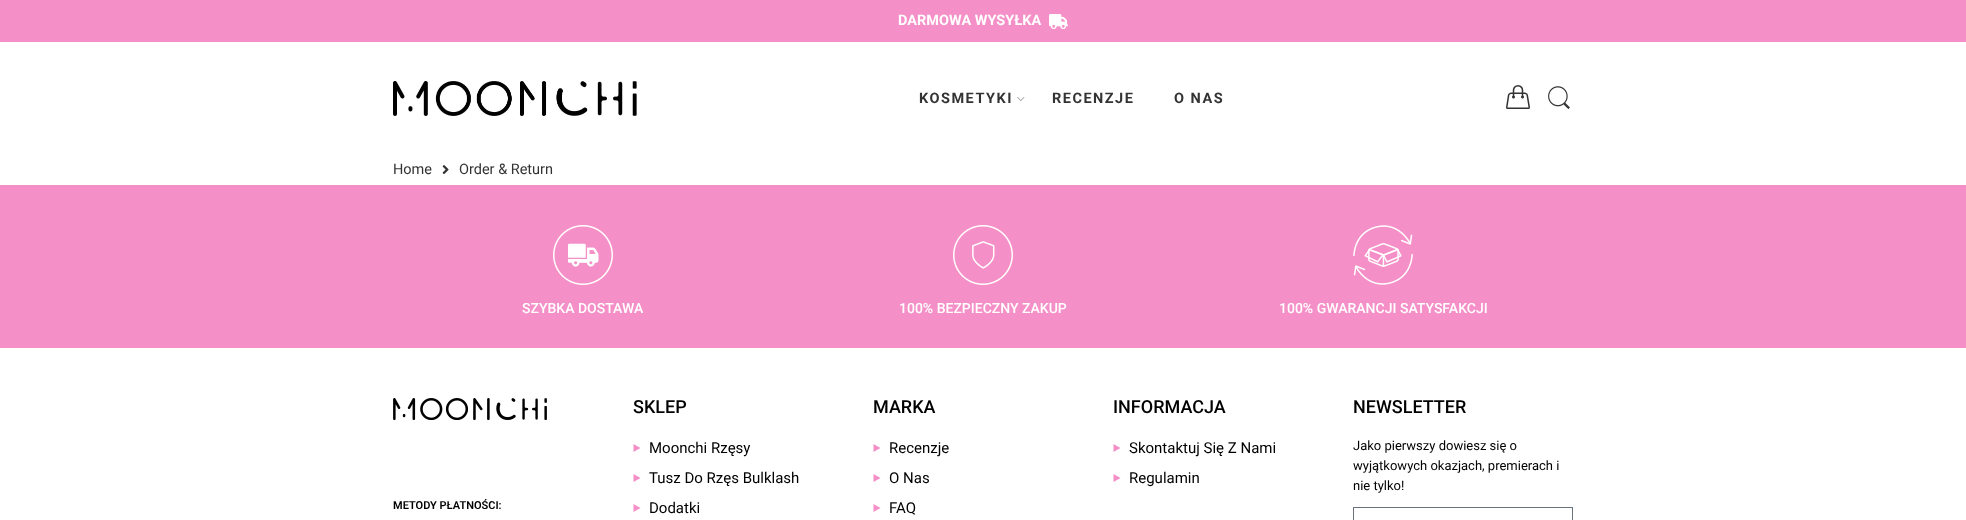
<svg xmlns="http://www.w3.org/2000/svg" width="1966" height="520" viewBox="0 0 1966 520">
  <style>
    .t1 { font: bold 14.5px Roboto; fill: #fff; }
    .t2 { font: bold 14.5px Roboto; letter-spacing: 1.5px; fill: #333; }
    .t3 { font: 24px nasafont; fill: #333; }
    .t4 { font: 14.5px Roboto; fill: #333; }
    .t5 { font: 500 14px Roboto; fill: #fff; }
    .t6 { font: 500 18px Roboto; fill: #000; }
    .t7 { font: 15px Roboto; fill: #000; }
    .t8 { font: 13px Roboto; fill: #000; }
    .t9 { font: 600 11px Roboto; fill: #000; }
  </style>
  <rect width="100%" height="100%" fill="#fff"/>
  <rect x="0" y="0" width="1966" height="42" fill="#f58fc7"/>
  <text x="898" y="25" class="t1">DARMOWA WYSYŁKA</text>
  <image x="1049" y="14" width="19" height="15" href="images/1.png"/>
  <image x="393" y="81" width="244" height="35" href="images/2.png"/>
  <text x="919" y="103" class="t2">KOSMETYKI</text>
  <image x="1017" y="97" width="8" height="4" href="images/3.png"/>
  <text x="1052" y="103" class="t2">RECENZJE</text>
  <text x="1174" y="103" class="t2">O NAS</text>
  <text x="1506" y="109" class="t3">4</text>
  <image x="1548" y="86" width="22" height="24" href="images/4.png"/>
  <text x="393" y="174" class="t4">Home</text>
  <image x="442" y="165" width="7" height="9" href="images/5.png"/>
  <text x="459" y="174" class="t4">Order &amp; Return</text>
  <rect x="0" y="185" width="1966" height="163" fill="#f58fc7"/>
  <image x="553" y="225" width="60" height="60" href="images/6.png"/>
  <text x="522" y="313" class="t5">SZYBKA DOSTAWA</text>
  <image x="953" y="225" width="60" height="60" href="images/7.png"/>
  <text x="899" y="313" class="t5">100% BEZPIECZNY ZAKUP</text>
  <image x="1353" y="225" width="60" height="60" href="images/8.png"/>
  <text x="1279" y="313" class="t5">100% GWARANCJI SATYSFAKCJI</text>
  <text x="633" y="413" class="t6">SKLEP</text>
  <path d="M640.5 448L633.5 452V444Z" fill="#f58fc7"/>
  <text x="649" y="453" class="t7">Moonchi Rzęsy</text>
  <path d="M640.5 478L633.5 482V474Z" fill="#f58fc7"/>
  <text x="649" y="483" class="t7">Tusz Do Rzęs Bulklash</text>
  <path d="M640.5 508L633.5 512V504Z" fill="#f58fc7"/>
  <text x="649" y="513" class="t7">Dodatki</text>
  <text x="873" y="413" class="t6">MARKA</text>
  <path d="M880.5 448L873.5 452V444Z" fill="#f58fc7"/>
  <text x="889" y="453" class="t7">Recenzje</text>
  <path d="M880.5 478L873.5 482V474Z" fill="#f58fc7"/>
  <text x="889" y="483" class="t7">O Nas</text>
  <path d="M880.5 508L873.5 512V504Z" fill="#f58fc7"/>
  <text x="889" y="513" class="t7">FAQ</text>
  <text x="1113" y="413" class="t6">INFORMACJA</text>
  <path d="M1120.5 448L1113.5 452V444Z" fill="#f58fc7"/>
  <text x="1129" y="453" class="t7">Skontaktuj Się Z Nami</text>
  <path d="M1120.5 478L1113.5 482V474Z" fill="#f58fc7"/>
  <text x="1129" y="483" class="t7">Regulamin</text>
  <text x="1353" y="413" class="t6">NEWSLETTER</text>
  <text x="1353" y="450" class="t8">Jako pierwszy dowiesz się o</text>
  <text x="1353" y="470" class="t8">wyjątkowych okazjach, premierach i</text>
  <text x="1353" y="490" class="t8">nie tylko!</text>
  <rect x="1353.5" y="507.5" width="219" height="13" fill="none" stroke="#69727d"/>
  <image x="393" y="398" width="154" height="22" href="images/9.png"/>
  <text x="393" y="509" class="t9">METODY PŁATNOŚCI:</text>
</svg>
